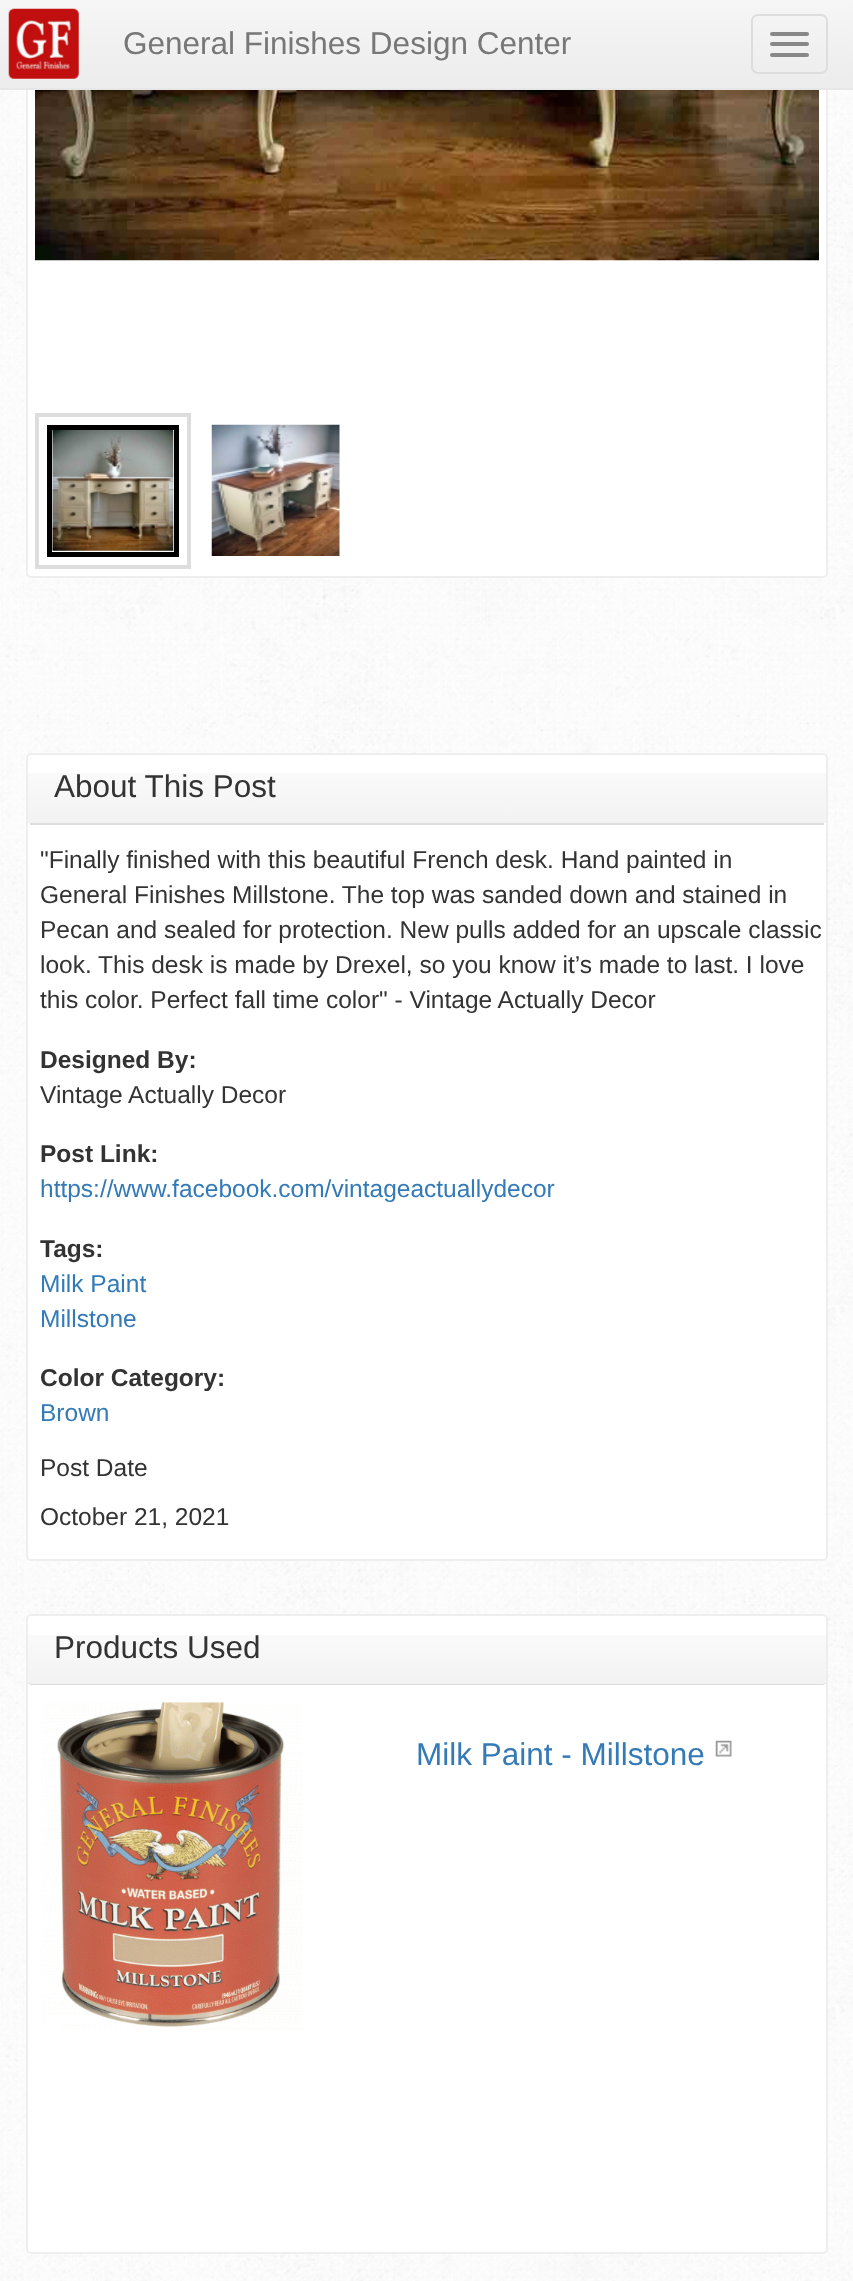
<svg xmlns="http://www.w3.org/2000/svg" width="853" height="2281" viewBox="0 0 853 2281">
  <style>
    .t1 { font: 31.5px Liberation Sans; fill: #777; }
    .t2 { font: 31.5px Liberation Sans; fill: #333; }
    .t3 { font: 24.5px Liberation Sans; fill: #333; }
    .t4 { font: bold 24.5px Liberation Sans; fill: #333; }
    .t5 { font: 24.5px Liberation Sans; fill: #337ab7; }
    .t6 { font: 31.5px Liberation Sans; fill: #337ab7; }
  </style>
  <defs>
    <linearGradient id="g1" gradientUnits="userSpaceOnUse" x1="427" y1="0" x2="427" y2="88"><stop offset="0" stop-color="#f6f6f6"/><stop offset="1" stop-color="#ececec"/></linearGradient>
    <linearGradient id="g2" gradientUnits="userSpaceOnUse" x1="427" y1="753" x2="427" y2="823"><stop offset="0" stop-color="#000" stop-opacity="0.01"/><stop offset="1" stop-color="#000" stop-opacity="0.05"/></linearGradient>
    <linearGradient id="g3" gradientUnits="userSpaceOnUse" x1="427" y1="1615" x2="427" y2="1684"><stop offset="0" stop-color="#000" stop-opacity="0.01"/><stop offset="1" stop-color="#000" stop-opacity="0.05"/></linearGradient>
  </defs>
  <rect width="100%" height="100%" fill="#fff"/>
  <image x="0" y="90" width="853" height="2191" href="images/1.png"/>
  <rect x="27" y="-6" width="800" height="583" rx="4" fill="#fff" stroke="#eee" stroke-width="2"/>
  <rect x="0" y="88" width="853" height="2" fill="#e7e7e7"/>
  <rect x="0" y="0" width="853" height="88" fill="url(#g1)"/>
  <image x="8" y="8" width="71" height="71" href="images/2.png"/>
  <text x="123" y="54" class="t1">General Finishes Design Center</text>
  <rect x="752" y="15" width="75" height="58" rx="6" fill="none" stroke="#ddd" stroke-width="2"/>
  <rect x="770" y="32" width="39" height="4" rx="2" fill="#888"/>
  <rect x="770" y="42" width="39" height="4" rx="2" fill="#888"/>
  <rect x="770" y="53" width="39" height="4" rx="2" fill="#888"/>
  <image x="35" y="90" width="784" height="171" href="images/3.png"/>
  <rect x="37" y="415" width="152" height="152" fill="none" stroke="#ddd" stroke-width="4"/>
  <rect x="49.5" y="427.5" width="127" height="127" fill="none" stroke="#000" stroke-width="5"/>
  <image x="52" y="430" width="122" height="121" href="images/4.png"/>
  <image x="211" y="424" width="129" height="132" href="images/5.png"/>
  <rect x="27" y="754" width="800" height="806" rx="4" fill="#fff" stroke="#eee" stroke-width="2"/>
  <rect x="28" y="773" width="798" height="50" fill="url(#g2)"/>
  <rect x="30" y="823" width="794" height="2" fill="#ddd"/>
  <text x="54" y="797" class="t2">About This Post</text>
  <text x="40" y="868" class="t3">"Finally finished with this beautiful French desk. Hand painted in</text>
  <text x="40" y="903" class="t3">General Finishes Millstone. The top was sanded down and stained in</text>
  <text x="40" y="938" class="t3">Pecan and sealed for protection. New pulls added for an upscale classic</text>
  <text x="40" y="973" class="t3">look. This desk is made by Drexel, so you know it’s made to last. I love</text>
  <text x="40" y="1008" class="t3">this color. Perfect fall time color" - Vintage Actually Decor</text>
  <text x="40" y="1068" class="t4">Designed By:</text>
  <text x="40" y="1103" class="t3">Vintage Actually Decor</text>
  <text x="40" y="1162" class="t4">Post Link:</text>
  <text x="40" y="1197" class="t5">https://www.facebook.com/vintageactuallydecor</text>
  <text x="40" y="1257" class="t4">Tags:</text>
  <text x="40" y="1292" class="t5">Milk Paint</text>
  <text x="40" y="1327" class="t5">Millstone</text>
  <text x="40" y="1386" class="t4">Color Category:</text>
  <text x="40" y="1421" class="t5">Brown</text>
  <text x="40" y="1476" class="t3">Post Date</text>
  <text x="40" y="1525" class="t3">October 21, 2021</text>
  <rect x="27" y="1615" width="800" height="638" rx="4" fill="#fff" stroke="#eee" stroke-width="2"/>
  <rect x="28" y="1635" width="798" height="49" fill="url(#g3)"/>
  <path d="M822 1685C824 1685 826 1684 826 1682C826 1683 824 1684 822 1684H32C30 1684 28 1683 28 1682C28 1684 30 1685 32 1685Z" fill="#ddd"/>
  <text x="54" y="1658" class="t2">Products Used</text>
  <image x="41" y="1702" width="261" height="328" href="images/6.png"/>
  <text x="416" y="1765" class="t6">Milk Paint - Millstone</text>
  <image x="715" y="1740" width="17" height="17" href="images/7.png"/>
</svg>
